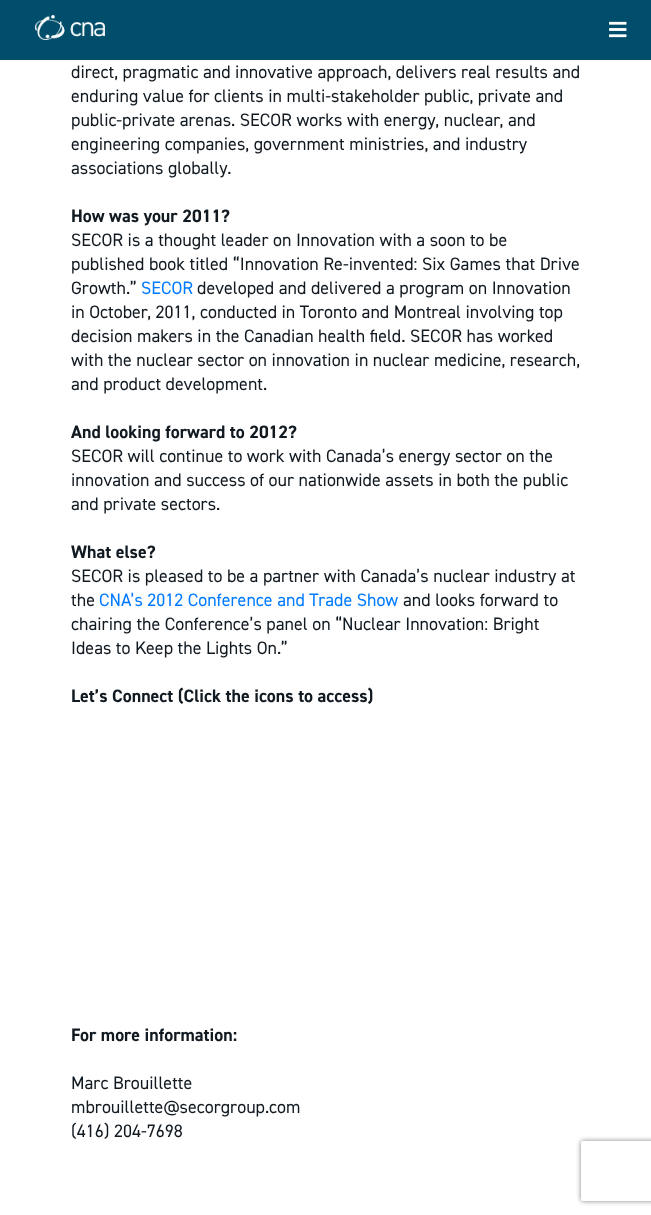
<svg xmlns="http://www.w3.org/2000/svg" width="651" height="1215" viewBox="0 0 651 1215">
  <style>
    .t1 { font: 18px 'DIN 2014'; fill: #111921; }
    .t2 { font: bold 18px 'DIN 2014'; fill: #111921; }
    .t3 { font: 18px 'DIN 2014'; fill: #007bff; }
  </style>
  <defs>
    <clipPath id="clip1"><path d="M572 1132H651V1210H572ZM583 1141H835C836 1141 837 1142 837 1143V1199C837 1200 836 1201 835 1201H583C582 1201 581 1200 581 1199V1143C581 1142 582 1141 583 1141Z" clip-rule="evenodd"/></clipPath>
  </defs>
  <rect width="100%" height="100%" fill="#fff"/>
  <rect x="0" y="0" width="651" height="60" fill="#004e6b"/>
  <image x="35" y="15" width="70" height="25" href="images/1.png"/>
  <image x="609" y="21" width="18" height="17" href="images/2.png"/>
  <text x="71" y="78" class="t1">direct, pragmatic and innovative approach, delivers real results and</text>
  <text x="71" y="102" class="t1">enduring value for clients in multi-stakeholder public, private and</text>
  <text x="71" y="126" class="t1">public-private arenas. SECOR works with energy, nuclear, and</text>
  <text x="71" y="150" class="t1">engineering companies, government ministries, and industry</text>
  <text x="71" y="174" class="t1">associations globally.</text>
  <text x="71" y="222" class="t2">How was your 2011?</text>
  <text x="71" y="246" class="t1">SECOR is a thought leader on Innovation with a soon to be</text>
  <text x="71" y="270" class="t1">published book titled “Innovation Re-invented: Six Games that Drive</text>
  <text x="71" y="294" class="t1">Growth.”</text>
  <text x="141" y="294" class="t3">SECOR</text>
  <text x="197" y="294" class="t1">developed and delivered a program on Innovation</text>
  <text x="71" y="318" class="t1">in October, 2011, conducted in Toronto and Montreal involving top</text>
  <text x="71" y="342" class="t1">decision makers in the Canadian health field. SECOR has worked</text>
  <text x="71" y="366" class="t1">with the nuclear sector on innovation in nuclear medicine, research,</text>
  <text x="71" y="390" class="t1">and product development.</text>
  <text x="71" y="438" class="t2">And looking forward to 2012?</text>
  <text x="71" y="462" class="t1">SECOR will continue to work with Canada’s energy sector on the</text>
  <text x="71" y="486" class="t1">innovation and success of our nationwide assets in both the public</text>
  <text x="71" y="510" class="t1">and private sectors.</text>
  <text x="71" y="558" class="t2">What else?</text>
  <text x="71" y="582" class="t1">SECOR is pleased to be a partner with Canada’s nuclear industry at</text>
  <text x="71" y="606" class="t1">the</text>
  <text x="99" y="606" class="t3">CNA’s 2012 Conference and Trade Show</text>
  <text x="403" y="606" class="t1">and looks forward to</text>
  <text x="71" y="630" class="t1">chairing the Conference’s panel on “Nuclear Innovation: Bright</text>
  <text x="71" y="654" class="t1">Ideas to Keep the Lights On.”</text>
  <text x="71" y="702" class="t2">Let’s Connect (Click the icons to access)</text>
  <text x="71" y="1041" class="t2">For more information:</text>
  <text x="71" y="1089" class="t1">Marc Brouillette</text>
  <text x="71" y="1113" class="t1">mbrouillette@secorgroup.com</text>
  <text x="71" y="1137" class="t1">(416) 204-7698</text>
  <g clip-path="url(#clip1)">
    <rect x="581" y="1141" width="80" height="60" rx="2" fill="#808080" filter="blur(2.5px)"/>
  </g>
</svg>
